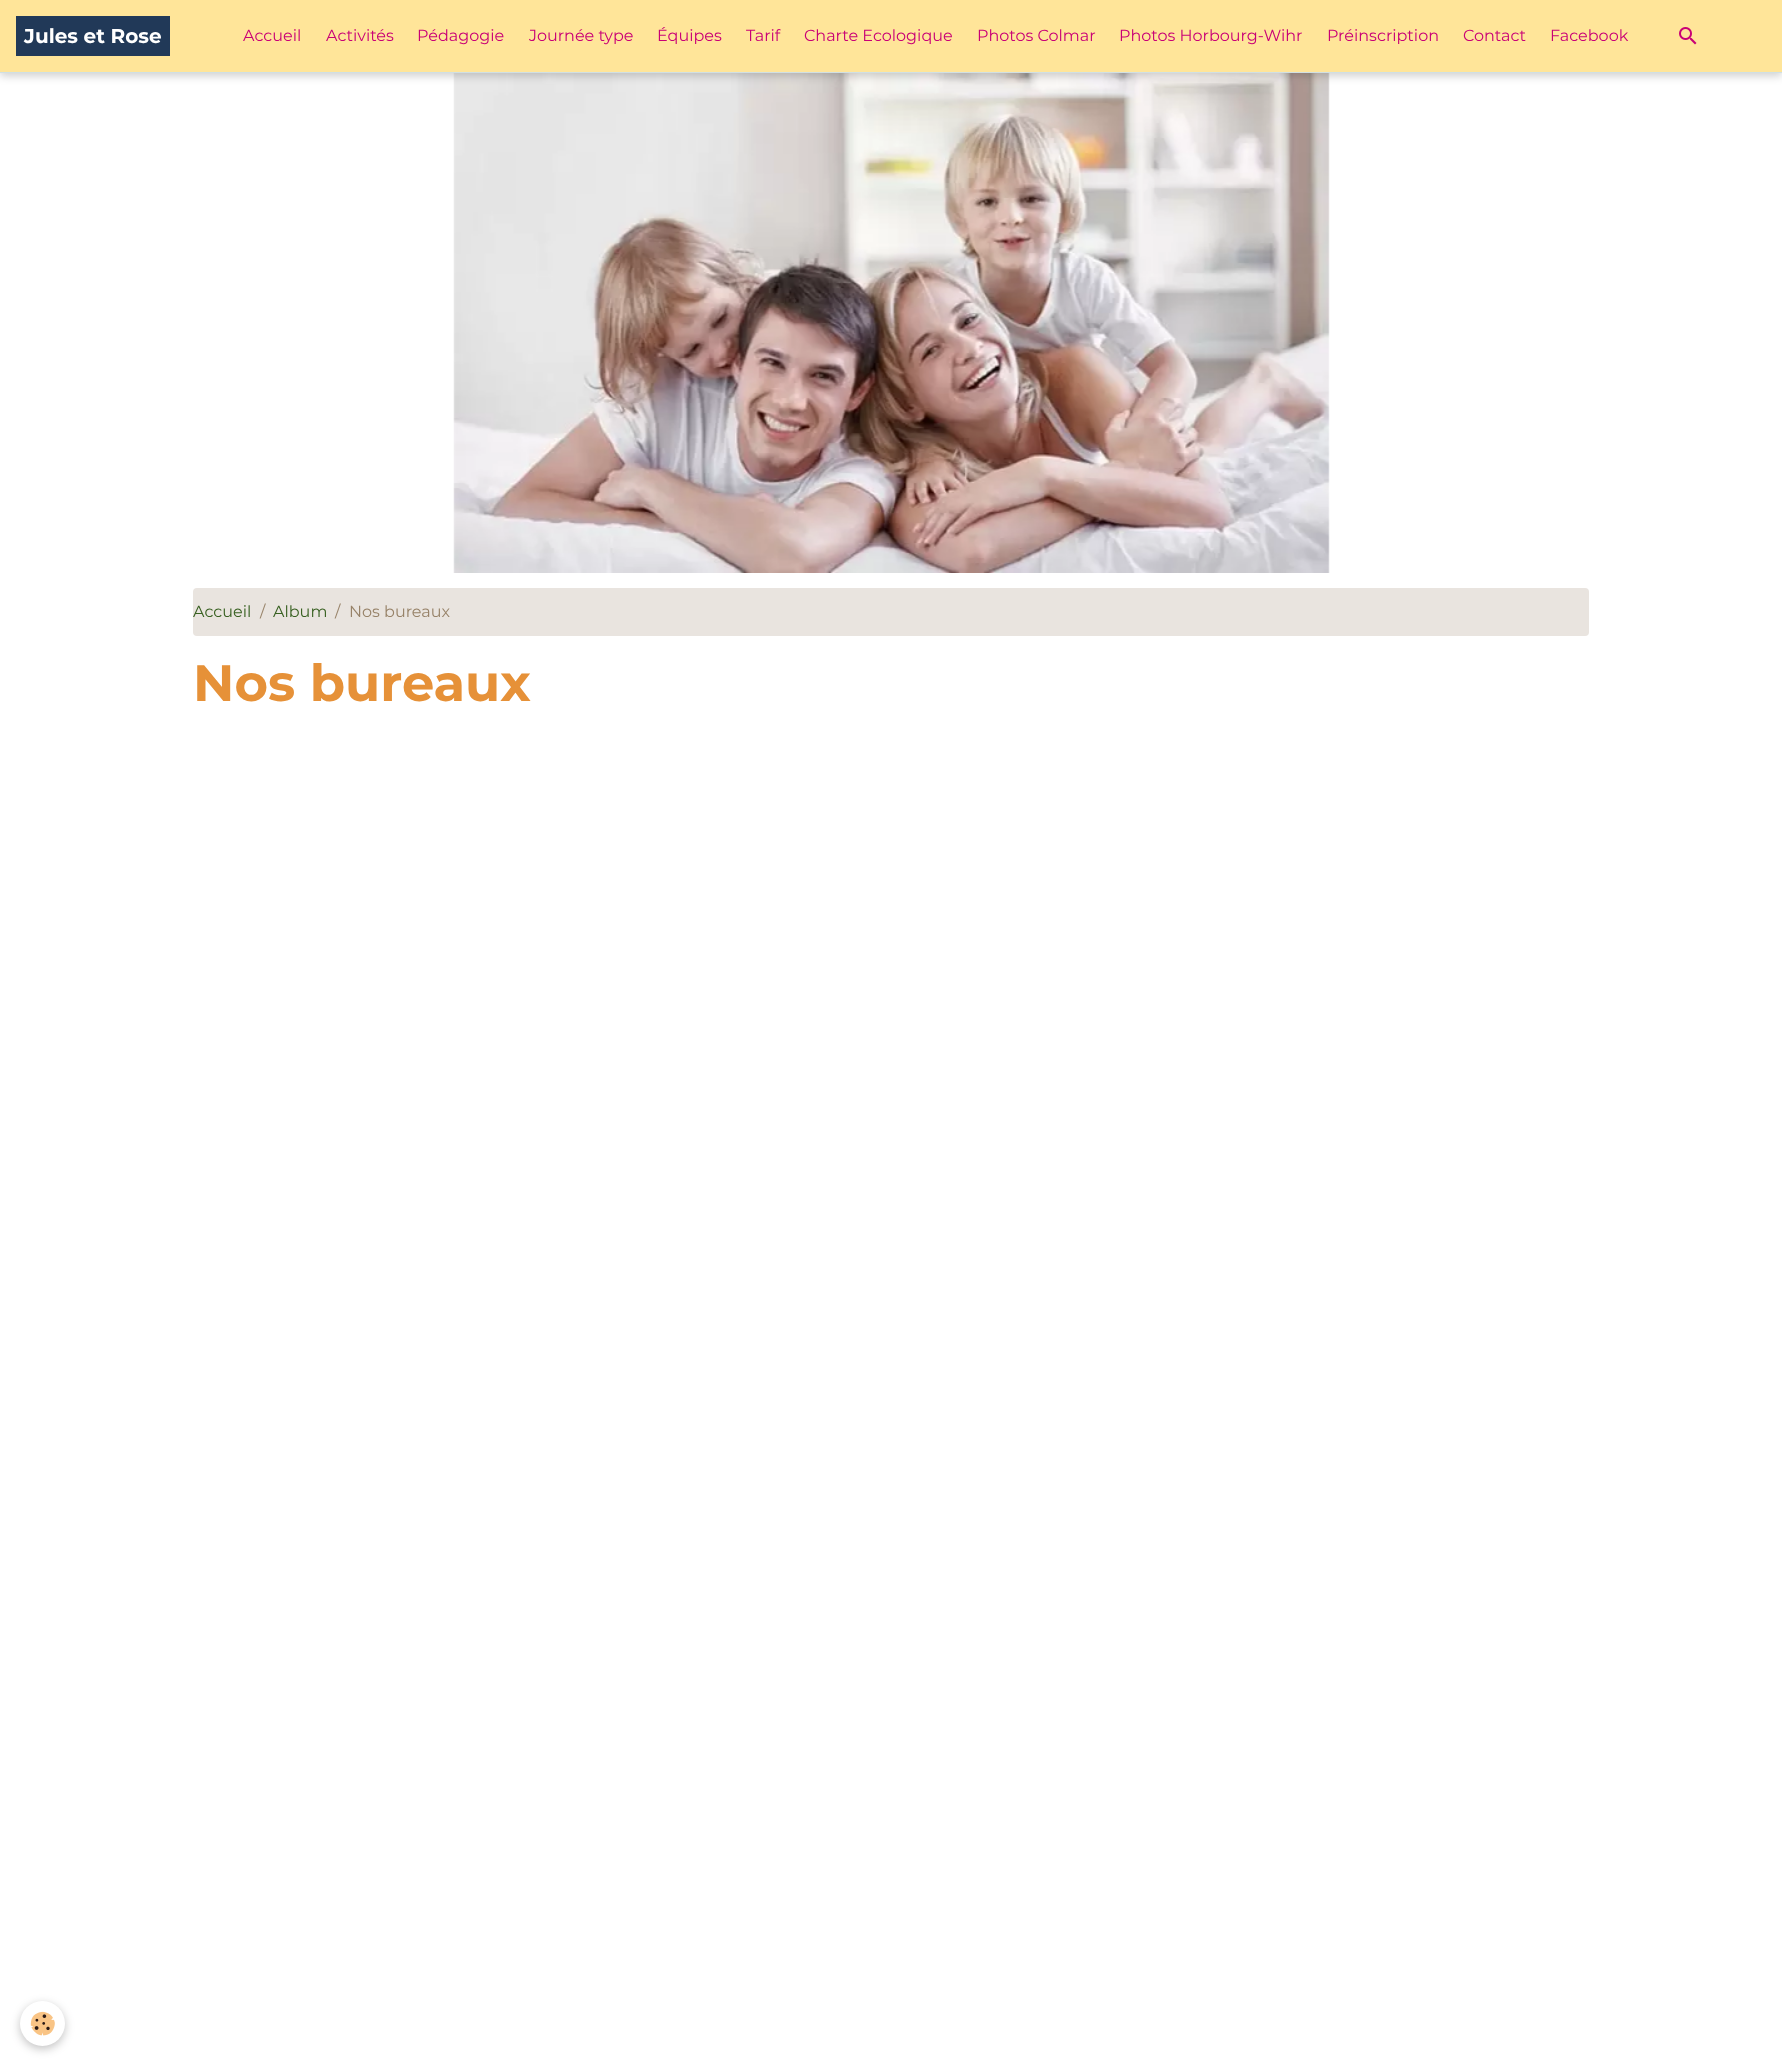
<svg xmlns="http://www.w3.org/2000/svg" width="1782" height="2065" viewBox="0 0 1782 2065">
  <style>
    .t1 { font: bold 20px Montserrat; fill: #fff; }
    .t2 { font: 16px Montserrat; fill: #c90076; }
    .t3 { font: 16px Montserrat; fill: #386021; }
    .t4 { font: 16px Montserrat; fill: #978268; }
    .t5 { font: bold 51.25px Montserrat; fill: #e69138; }
  </style>
  <rect width="100%" height="100%" fill="#fff"/>
  <image x="453" y="73" width="877" height="500" href="images/2.png"/>
  <rect x="0" y="3" width="1782" height="73" fill="#00000030" filter="blur(4px)"/>
  <rect x="0" y="0" width="1782" height="72" fill="#ffe599"/>
  <rect x="0" y="72" width="1782" height="1" fill="#d0e0e3"/>
  <rect x="16" y="16" width="154" height="40" fill="#213958"/>
  <text x="24" y="43" class="t1">Jules et Rose</text>
  <text x="243" y="41" class="t2">Accueil</text>
  <text x="326" y="41" class="t2">Activités</text>
  <text x="417" y="41" class="t2">Pédagogie</text>
  <text x="529" y="41" class="t2">Journée type</text>
  <text x="657" y="41" class="t2">Équipes</text>
  <text x="746" y="41" class="t2">Tarif</text>
  <text x="804" y="41" class="t2">Charte Ecologique</text>
  <text x="977" y="41" class="t2">Photos Colmar</text>
  <text x="1119" y="41" class="t2">Photos Horbourg-Wihr</text>
  <text x="1327" y="41" class="t2">Préinscription</text>
  <text x="1463" y="41" class="t2">Contact</text>
  <text x="1550" y="41" class="t2">Facebook</text>
  <image x="1679" y="27" width="18" height="18" href="images/1.png"/>
  <rect x="193" y="588" width="1396" height="48" rx="4" fill="#e9e4df"/>
  <text x="193" y="617" class="t3">Accueil</text>
  <text x="260" y="617" class="t4">/</text>
  <text x="273" y="617" class="t3">Album</text>
  <text x="335" y="617" class="t4">/</text>
  <text x="349" y="617" class="t4">Nos bureaux</text>
  <text x="193" y="701" class="t5">Nos bureaux</text>
  <rect x="20" y="2004" width="45" height="45" rx="22.5" fill="#0000003d" filter="blur(5px)"/>
  <circle cx="42.5" cy="2023.5" r="22.5" fill="#fff"/>
  <image x="30" y="2011" width="25" height="25" href="images/3.png"/>
</svg>
